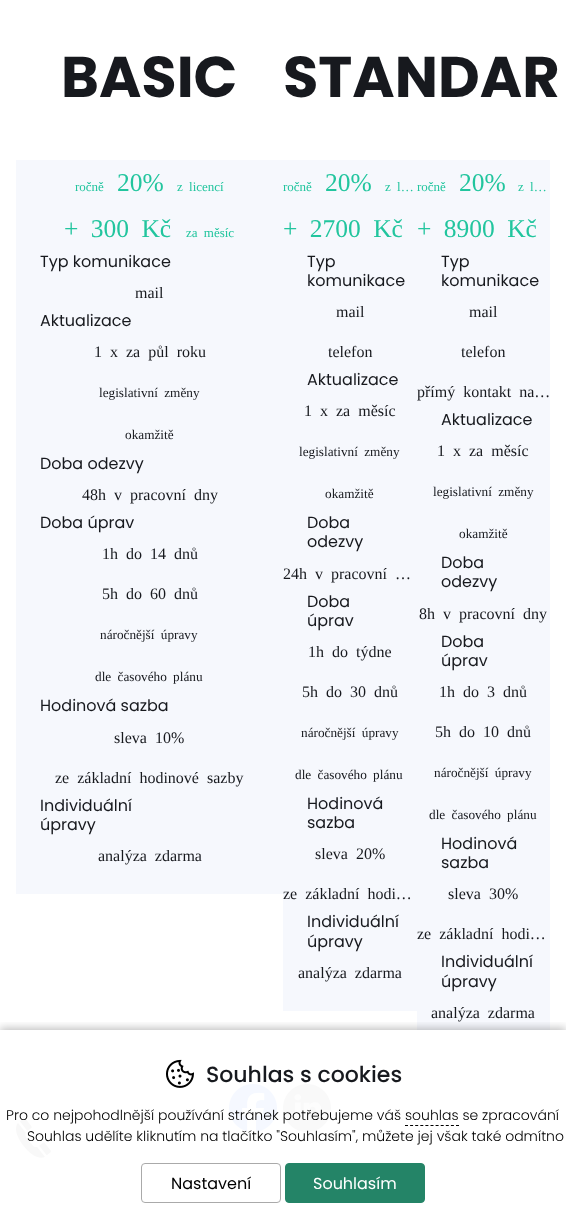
<svg xmlns="http://www.w3.org/2000/svg" width="566" height="1223" viewBox="0 0 566 1223">
  <style>
    .t1 { font: bold 57.5px Poppins; fill: #17191e; }
    .t2 { font: 13px Liberation Serif; fill: #22c59e; }
    .t3 { font: 25.5px Liberation Serif; fill: #22c59e; }
    .t4 { font: 16px Poppins; fill: #17191e; }
    .t5 { font: 16px Liberation Serif; fill: #17191e; }
    .t6 { font: 13.25px Liberation Serif; fill: #17191e; }
    .t7 { font: 500 22px Poppins; fill: #17191e; }
    .t8 { font: 300 14px Poppins; fill: #000; }
    .t9 { font: 16px Poppins; fill: #000; }
    .t10 { font: 16px Poppins; fill: #fff; }
  </style>
  <defs>
    <clipPath id="clip1"><rect x="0" y="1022" width="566" height="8"/></clipPath>
  </defs>
  <rect width="100%" height="100%" fill="#fff"/>
  <text x="61" y="97" class="t1">BASIC</text>
  <rect x="16" y="160" width="267" height="734" fill="#f6f8fd"/>
  <text x="75" y="191" class="t2">ročně</text>
  <text x="117" y="191" class="t3">20%</text>
  <text x="177" y="191" word-spacing="3" class="t2">z licencí</text>
  <text x="64" y="237" word-spacing="6" class="t3">+ 300 Kč</text>
  <text x="186" y="237" word-spacing="3" class="t2">za měsíc</text>
  <text x="40" y="267" class="t4">Typ komunikace</text>
  <text x="135" y="298" class="t5">mail</text>
  <text x="40" y="326" class="t4">Aktualizace</text>
  <text x="94" y="357" word-spacing="4" class="t5">1 x za půl roku</text>
  <text x="99" y="397" word-spacing="3" class="t6">legislativní změny</text>
  <text x="125" y="439" class="t6">okamžitě</text>
  <text x="40" y="469" class="t4">Doba odezvy</text>
  <text x="82" y="500" word-spacing="4" class="t5">48h v pracovní dny</text>
  <text x="40" y="528" class="t4">Doba úprav</text>
  <text x="102" y="559" word-spacing="4" class="t5">1h do 14 dnů</text>
  <text x="102" y="599" word-spacing="4" class="t5">5h do 60 dnů</text>
  <text x="100" y="639" word-spacing="3" class="t6">náročnější úpravy</text>
  <text x="95" y="681" word-spacing="3" class="t6">dle časového plánu</text>
  <text x="40" y="711" class="t4">Hodinová sazba</text>
  <text x="114" y="743" word-spacing="4" class="t5">sleva 10%</text>
  <text x="55" y="783" word-spacing="4" class="t5">ze základní hodinové sazby</text>
  <text x="40" y="811" class="t4">Individuální</text>
  <text x="40" y="830" class="t4">úpravy</text>
  <text x="98" y="861" word-spacing="4" class="t5">analýza zdarma</text>
  <text x="283" y="97" class="t1">STANDAR</text>
  <rect x="283" y="160" width="134" height="851" fill="#f6f8fd"/>
  <text x="283" y="191" class="t2">ročně</text>
  <text x="325" y="191" class="t3">20%</text>
  <text x="385" y="191" word-spacing="3" class="t2">z l…</text>
  <text x="283" y="237" word-spacing="6" class="t3">+ 2700 Kč</text>
  <text x="307" y="267" class="t4">Typ</text>
  <text x="307" y="286" class="t4">komunikace</text>
  <text x="336" y="317" class="t5">mail</text>
  <text x="328" y="357" class="t5">telefon</text>
  <text x="307" y="385" class="t4">Aktualizace</text>
  <text x="304" y="416" word-spacing="4" class="t5">1 x za měsíc</text>
  <text x="299" y="456" word-spacing="3" class="t6">legislativní změny</text>
  <text x="325" y="498" class="t6">okamžitě</text>
  <text x="307" y="528" class="t4">Doba</text>
  <text x="307" y="547" class="t4">odezvy</text>
  <text x="283" y="579" word-spacing="4" class="t5">24h v pracovní …</text>
  <text x="307" y="607" class="t4">Doba</text>
  <text x="307" y="626" class="t4">úprav</text>
  <text x="308" y="657" word-spacing="4" class="t5">1h do týdne</text>
  <text x="302" y="697" word-spacing="4" class="t5">5h do 30 dnů</text>
  <text x="301" y="737" word-spacing="3" class="t6">náročnější úpravy</text>
  <text x="295" y="779" word-spacing="3" class="t6">dle časového plánu</text>
  <text x="307" y="809" class="t4">Hodinová</text>
  <text x="307" y="828" class="t4">sazba</text>
  <text x="315" y="859" word-spacing="4" class="t5">sleva 20%</text>
  <text x="283" y="899" word-spacing="4" class="t5">ze základní hodi…</text>
  <text x="307" y="927" class="t4">Individuální</text>
  <text x="307" y="947" class="t4">úpravy</text>
  <text x="298" y="978" word-spacing="4" class="t5">analýza zdarma</text>
  <rect x="417" y="160" width="133" height="870" fill="#f6f8fd"/>
  <text x="417" y="191" class="t2">ročně</text>
  <text x="459" y="191" class="t3">20%</text>
  <text x="518" y="191" word-spacing="3" class="t2">z l…</text>
  <text x="417" y="237" word-spacing="6" class="t3">+ 8900 Kč</text>
  <text x="441" y="267" class="t4">Typ</text>
  <text x="441" y="286" class="t4">komunikace</text>
  <text x="469" y="317" class="t5">mail</text>
  <text x="461" y="357" class="t5">telefon</text>
  <text x="417" y="397" word-spacing="4" class="t5">přímý kontakt na…</text>
  <text x="441" y="425" class="t4">Aktualizace</text>
  <text x="437" y="456" word-spacing="4" class="t5">1 x za měsíc</text>
  <text x="433" y="496" word-spacing="3" class="t6">legislativní změny</text>
  <text x="459" y="538" class="t6">okamžitě</text>
  <text x="441" y="568" class="t4">Doba</text>
  <text x="441" y="587" class="t4">odezvy</text>
  <text x="419" y="619" word-spacing="4" class="t5">8h v pracovní dny</text>
  <text x="441" y="647" class="t4">Doba</text>
  <text x="441" y="666" class="t4">úprav</text>
  <text x="439" y="697" word-spacing="4" class="t5">1h do 3 dnů</text>
  <text x="435" y="737" word-spacing="4" class="t5">5h do 10 dnů</text>
  <text x="434" y="777" word-spacing="3" class="t6">náročnější úpravy</text>
  <text x="429" y="819" word-spacing="3" class="t6">dle časového plánu</text>
  <text x="441" y="849" class="t4">Hodinová</text>
  <text x="441" y="868" class="t4">sazba</text>
  <text x="448" y="899" word-spacing="4" class="t5">sleva 30%</text>
  <text x="417" y="939" word-spacing="4" class="t5">ze základní hodi…</text>
  <text x="441" y="967" class="t4">Individuální</text>
  <text x="441" y="987" class="t4">úpravy</text>
  <text x="431" y="1018" word-spacing="4" class="t5">analýza zdarma</text>
  <image x="229" y="1084" width="48" height="48" href="images/2.png"/>
  <image x="283" y="1084" width="48" height="48" href="images/3.png"/>
  <image x="16" y="1118" width="35" height="40" href="images/4.png"/>
  <g clip-path="url(#clip1)">
    <rect x="0" y="1028" width="566" height="193" fill="#00000040" filter="blur(4px)"/>
  </g>
  <image x="166" y="1059" width="28" height="29" href="images/1.png"/>
  <text x="206" y="1082" class="t7">Souhlas s cookies</text>
  <text x="6" y="1120" class="t8">Pro co nejpohodlnější používání stránek potřebujeme váš souhlas se zpracování</text>
  <path d="M405 1125.5H459" fill="none" stroke="#000" stroke-dasharray="3 2.1"/>
  <text x="27" y="1141" class="t8">Souhlas udělíte kliknutím na tlačítko "Souhlasím", můžete jej však také odmítno</text>
  <rect x="141.5" y="1163.5" width="139" height="39" rx="3.5" fill="none" stroke="#aaa"/>
  <text x="171" y="1189" class="t9">Nastavení</text>
  <rect x="285.5" y="1163.5" width="139" height="39" rx="3.5" fill="#248467" stroke="#248467"/>
  <text x="313" y="1189" class="t10">Souhlasím</text>
</svg>
